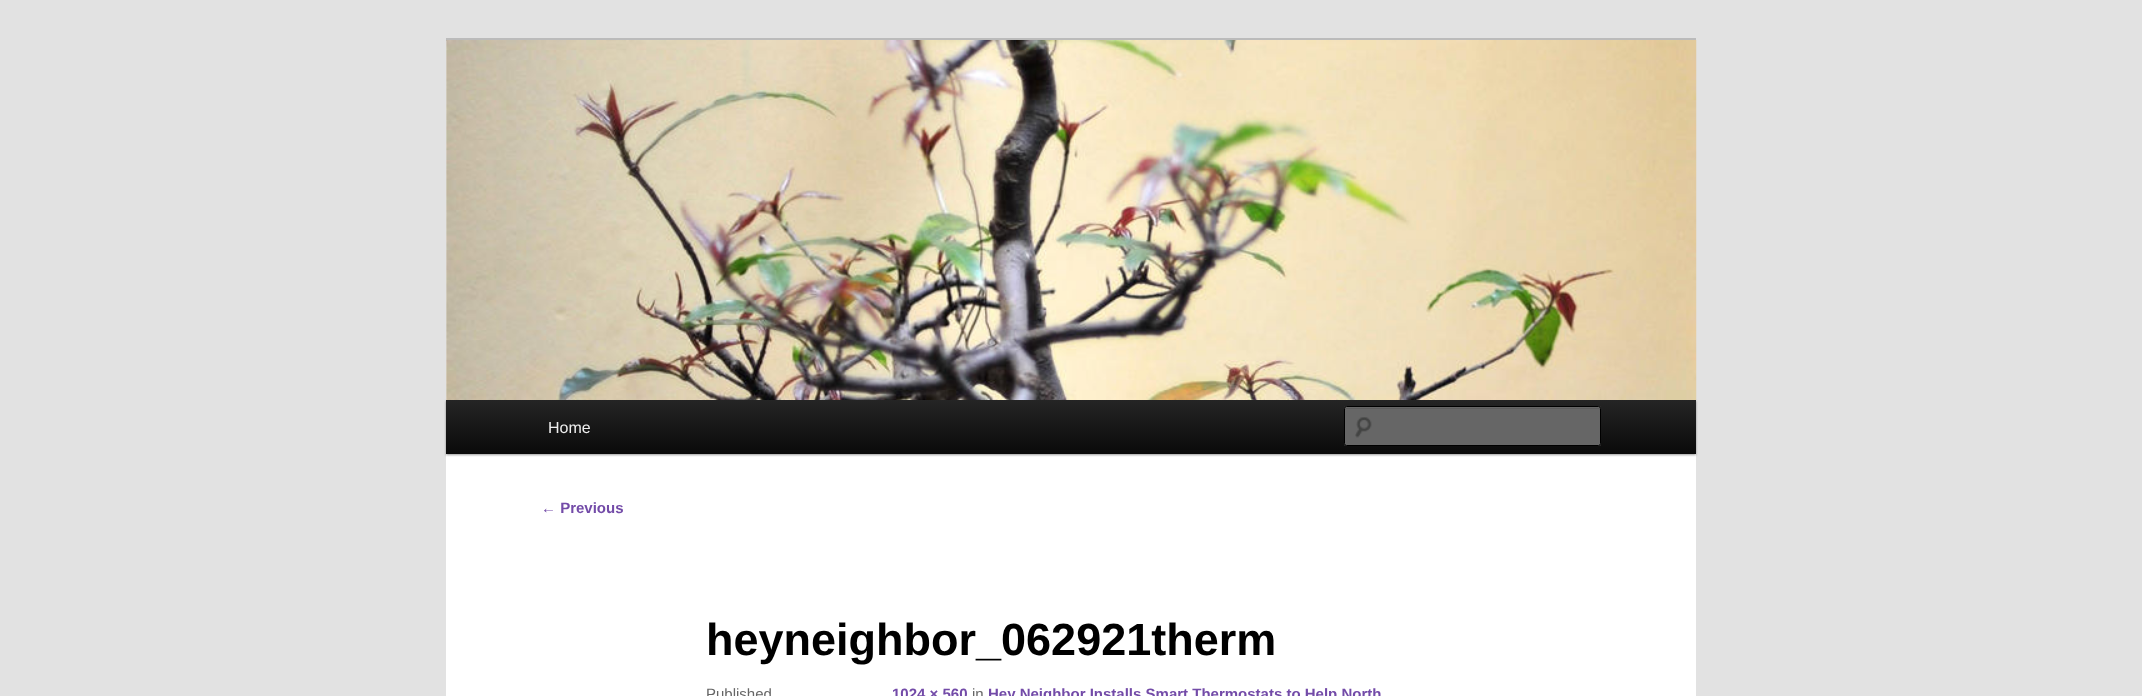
<svg xmlns="http://www.w3.org/2000/svg" width="2142" height="696" viewBox="0 0 2142 696">
  <style>
    .t1 { font: 16px Liberation Sans; fill: #eee; }
    .t2 { font: bold 15px Liberation Sans; fill: #734ba8; }
    .t3 { font: bold 45px Liberation Sans; fill: #000; }
    .t4 { font: 15px Liberation Sans; fill: #666; }
  </style>
  <defs>
    <linearGradient id="g1" gradientUnits="userSpaceOnUse" x1="1071" y1="400" x2="1071" y2="454"><stop offset="0" stop-color="#252525"/><stop offset="1" stop-color="#0a0a0a"/></linearGradient>
  </defs>
  <rect width="100%" height="100%" fill="#e2e2e2"/>
  <rect x="446" y="41" width="1250" height="655" fill="#fff"/>
  <rect x="446" y="38" width="1250" height="3" fill="#bbb"/>
  <rect x="446" y="401" width="1250" height="54" fill="#00000066" filter="blur(1px)"/>
  <image x="446" y="40" width="1251" height="360" href="images/1.png"/>
  <rect x="446" y="400" width="1250" height="54" fill="url(#g1)"/>
  <text x="548" y="433" class="t1">Home</text>
  <rect x="1344" y="406" width="257" height="40" rx="2.5" fill="#666"/>
  <image x="1355" y="417" width="17" height="21" href="images/2.png"/>
  <path d="M1346 409H1599L1600 410V408H1346C1345 408 1345 409 1345 410Z" fill="#5c5c5c"/>
  <rect x="1344.5" y="406.5" width="256" height="39" rx="2" fill="none" stroke="#000"/>
  <text x="541" y="513" class="t2">← Previous</text>
  <text x="706" y="655" class="t3">heyneighbor_062921therm</text>
  <text x="706" y="699" class="t4">Published</text>
  <text x="892" y="699" class="t2">1024 × 560</text>
  <text x="972" y="699" class="t4">in</text>
  <text x="988" y="699" class="t2">Hey Neighbor Installs Smart Thermostats to Help North</text>
</svg>
